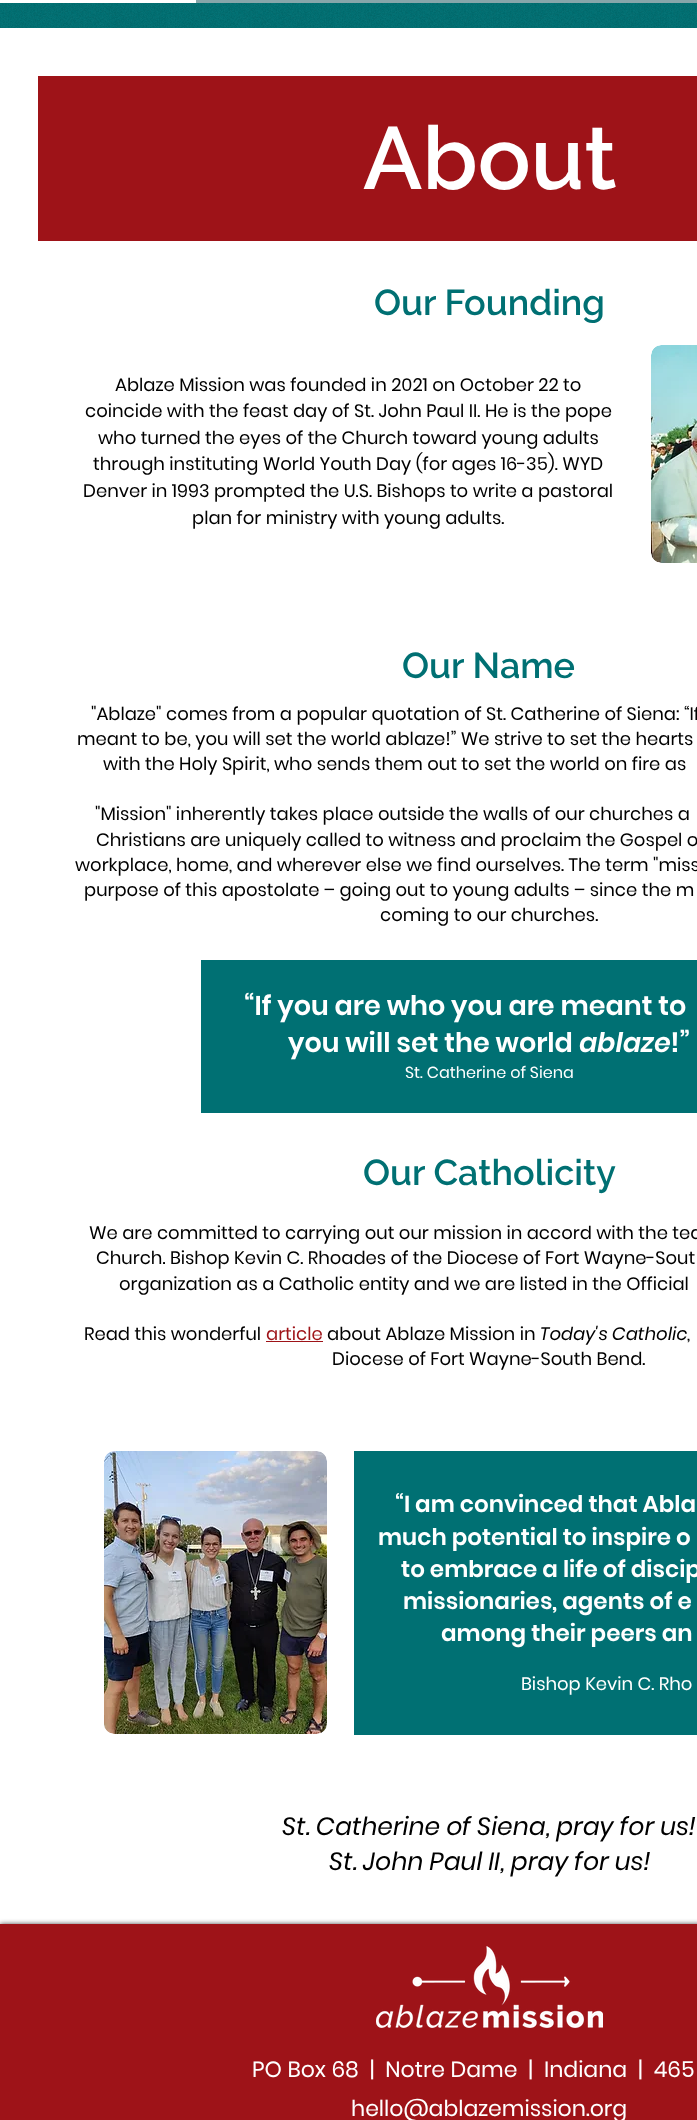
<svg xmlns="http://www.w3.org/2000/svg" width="697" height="2120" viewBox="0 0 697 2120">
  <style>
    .t1 { font: 600 88px Raleway; fill: #fff; }
    .t2 { font: 600 36px Raleway; fill: #007073; }
    .t3 { font: 18px Poppins; fill: #000; }
    .t4 { font: 18px Poppins; fill: #9e1318; }
    .t5 { font: italic 18px Poppins; fill: #000; }
    .t6 { font: 600 27px Poppins; fill: #fff; }
    .t7 { font: italic 600 27px Poppins; fill: #fff; }
    .t8 { font: 16px Poppins; fill: #fff; }
    .t9 { font: 600 23px Poppins; fill: #fff; }
    .t10 { font: 18px Poppins; fill: #fff; }
    .t11 { font: italic 25px Poppins; fill: #000; }
    .t12 { font: 22px Poppins; fill: #fff; }
  </style>
  <rect width="100%" height="100%" fill="#007073"/>
  <rect x="0" y="0" width="196" height="3" fill="#fff"/>
  <rect x="196" y="0" width="501" height="3" fill="#87a6aa"/>
  <image x="0" y="3" width="697" height="25" href="images/1.png"/>
  <rect x="0" y="28" width="697" height="1896" fill="#fff"/>
  <rect x="38" y="76" width="659" height="165" fill="#9e1318"/>
  <text x="363" y="189" class="t1">About</text>
  <text x="374" y="315" class="t2">Our Founding</text>
  <text x="115" y="391" class="t3">Ablaze Mission was founded in 2021 on October 22 to</text>
  <text x="85" y="417" class="t3">coincide with the feast day of St. John Paul II. He is the pope</text>
  <text x="98" y="444" class="t3">who turned the eyes of the Church toward young adults</text>
  <text x="93" y="470" class="t3">through instituting World Youth Day (for ages 16-35). WYD</text>
  <text x="83" y="497" class="t3">Denver in 1993 prompted the U.S. Bishops to write a pastoral</text>
  <text x="192" y="524" class="t3">plan for ministry with young adults.</text>
  <image x="651" y="345" width="46" height="218" href="images/2.png"/>
  <text x="402" y="678" class="t2">Our Name</text>
  <text x="91" y="720" class="t3">"Ablaze" comes from a popular quotation of St. Catherine of Siena: “If</text>
  <text x="77" y="745" class="t3">meant to be, you will set the world ablaze!” We strive to set the hearts</text>
  <text x="103" y="770" class="t3">with the Holy Spirit, who sends them out to set the world on fire as</text>
  <text x="95" y="820" class="t3">"Mission" inherently takes place outside the walls of our churches a</text>
  <text x="96" y="846" class="t3">Christians are uniquely called to witness and proclaim the Gospel o</text>
  <text x="75" y="871" class="t3">workplace, home, and wherever else we find ourselves. The term "miss</text>
  <text x="84" y="896" class="t3">purpose of this apostolate – going out to young adults – since the m</text>
  <text x="380" y="921" class="t3">coming to our churches.</text>
  <text x="363" y="1185" class="t2">Our Catholicity</text>
  <text x="89" y="1239" class="t3">We are committed to carrying out our mission in accord with the tea</text>
  <text x="96" y="1264" class="t3">Church. Bishop Kevin C. Rhoades of the Diocese of Fort Wayne-Sout</text>
  <text x="119" y="1290" class="t3">organization as a Catholic entity and we are listed in the Official</text>
  <text x="84" y="1340" class="t3">Read this wonderful</text>
  <text x="266" y="1340" class="t4">article</text>
  <rect x="266" y="1341" width="57" height="1" fill="#9e1318"/>
  <text x="327" y="1340" class="t3">about Ablaze Mission in</text>
  <text x="540" y="1340" class="t5">Today's Catholic</text>
  <text x="687" y="1340" class="t3">,</text>
  <text x="332" y="1365" class="t3">Diocese of Fort Wayne-South Bend.</text>
  <rect x="201" y="960" width="496" height="153" fill="#007073"/>
  <text x="244" y="1015" class="t6">“If you are who you are meant to</text>
  <text x="288" y="1052" class="t6">you will set the world</text>
  <text x="579" y="1052" class="t7">ablaze</text>
  <text x="670" y="1052" class="t6">!”</text>
  <text x="405" y="1078" class="t8">St. Catherine of Siena</text>
  <image x="104" y="1451" width="223" height="283" href="images/3.png"/>
  <rect x="354" y="1451" width="343" height="284" fill="#007073"/>
  <text x="395" y="1512" class="t9">“I am convinced that Abla</text>
  <text x="378" y="1545" class="t9">much potential to inspire o</text>
  <text x="401" y="1577" class="t9">to embrace a life of discip</text>
  <text x="403" y="1609" class="t9">missionaries, agents of e</text>
  <text x="441" y="1641" class="t9">among their peers an</text>
  <text x="521" y="1690" class="t10">Bishop Kevin C. Rho</text>
  <text x="282" y="1835" class="t11">St. Catherine of Siena, pray for us!</text>
  <text x="329" y="1870" class="t11">St. John Paul II, pray for us!</text>
  <rect x="0" y="1924" width="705" height="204" fill="#000000b3" filter="blur(2.5px)"/>
  <rect x="0" y="1924" width="697" height="196" fill="#9e1318"/>
  <image x="376" y="1946" width="227" height="82" href="images/4.png"/>
  <text x="252" y="2077" class="t12" xml:space="preserve">PO Box 68  |  Notre Dame  |  Indiana  |  465</text>
  <text x="351" y="2116" class="t12">hello@ablazemission.org</text>
</svg>
